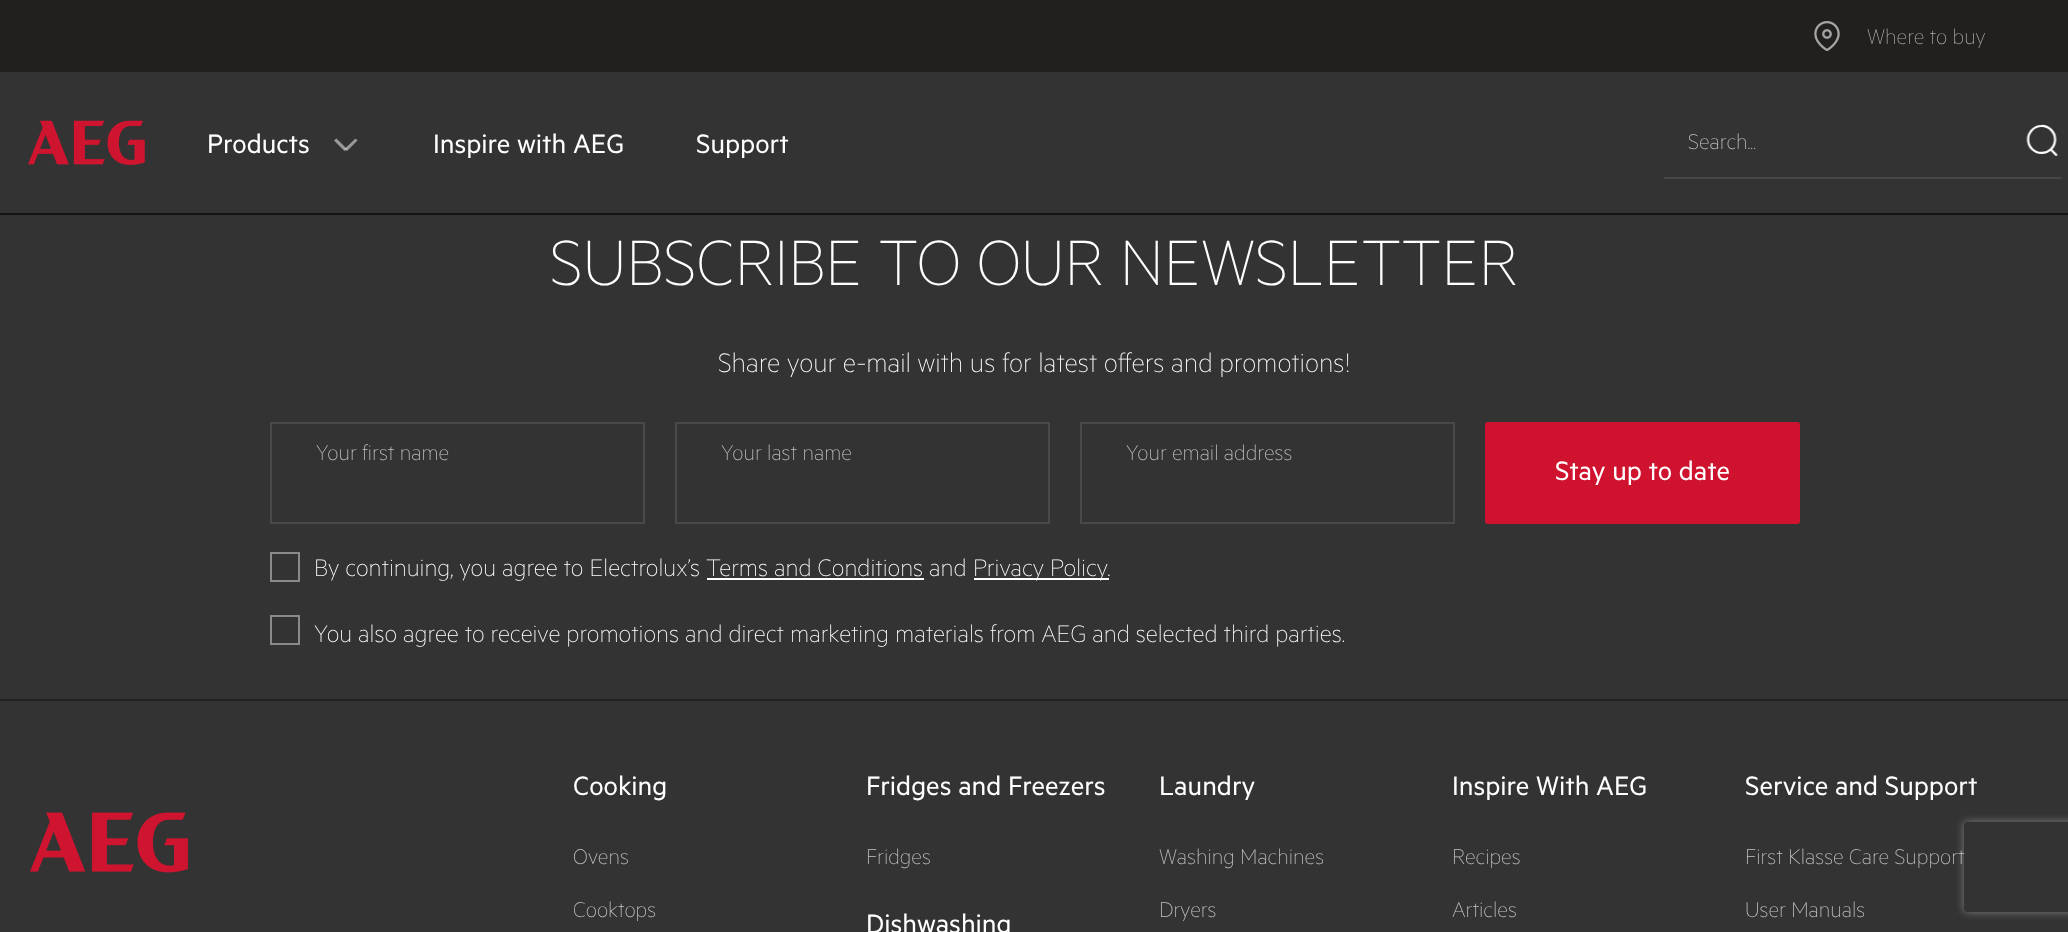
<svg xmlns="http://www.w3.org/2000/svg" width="2068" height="932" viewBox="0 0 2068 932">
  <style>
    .t1 { font: 200 24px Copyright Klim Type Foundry; fill: #a6a6a5; }
    .t2 { font: 30px Copyright Klim Type Foundry; fill: #fff; }
    .t3 { font: 200 24px Copyright Klim Type Foundry; fill: #c3c4c7; }
    .t4 { font: 200 72px Copyright Klim Type Foundry; fill: #fff; }
    .t5 { font: 200 30px Copyright Klim Type Foundry; fill: #fff; }
    .t6 { font: 200 27px Copyright Klim Type Foundry; fill: #fff; }
  </style>
  <defs>
    <clipPath id="clip1"><path d="M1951 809H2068V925H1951ZM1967 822H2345C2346.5 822 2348 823.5 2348 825V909C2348 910.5 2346.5 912 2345 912H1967C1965.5 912 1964 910.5 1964 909V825C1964 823.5 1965.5 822 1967 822Z" clip-rule="evenodd"/></clipPath>
  </defs>
  <rect width="100%" height="100%" fill="#333"/>
  <rect x="0" y="213" width="2068" height="2" fill="#141414"/>
  <rect x="0" y="0" width="2068" height="72" fill="#21201f"/>
  <image x="1814" y="21" width="26" height="30" href="images/1.png"/>
  <text x="1867" y="44" class="t1">Where to buy</text>
  <image x="28" y="120" width="117" height="45" href="images/2.png"/>
  <text x="207" y="153" class="t2">Products</text>
  <path d="M355.5 138.5L357.5 140.5L347 151L344.5 149Z" fill="#999"/>
  <path d="M336.5 138.5L347 149L344.5 151L334 140.5Z" fill="#ffffff80"/>
  <text x="433" y="153" class="t2">Inspire with AEG</text>
  <text x="696" y="153" class="t2">Support</text>
  <rect x="1664" y="177" width="397" height="2" fill="#474747"/>
  <text x="1688" y="149" class="t3">Search...</text>
  <image x="2026" y="124" width="32" height="32" href="images/3.png"/>
  <rect x="0" y="699" width="2068" height="2" fill="#21201f"/>
  <text x="550" y="285" class="t4">SUBSCRIBE TO OUR NEWSLETTER</text>
  <text x="718" y="372" class="t5">Share your e-mail with us for latest offers and promotions!</text>
  <rect x="271" y="423" width="373" height="100" fill="none" stroke="#494949" stroke-width="2"/>
  <text x="316" y="460" class="t3">Your first name</text>
  <rect x="676" y="423" width="373" height="100" fill="none" stroke="#494949" stroke-width="2"/>
  <text x="721" y="460" class="t3">Your last name</text>
  <rect x="1081" y="423" width="373" height="100" fill="none" stroke="#494949" stroke-width="2"/>
  <text x="1126" y="460" class="t3">Your email address</text>
  <rect x="1485" y="422" width="315" height="102" rx="3" fill="#cf132f"/>
  <text x="1555" y="480" class="t2">Stay up to date</text>
  <g clip-path="url(#clip1)">
    <rect x="1964" y="822" width="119" height="90" rx="3" fill="#808080" filter="blur(4px)"/>
  </g>
  <rect x="271" y="553" width="28" height="28" fill="none" stroke="#898b8b" stroke-width="2"/>
  <text x="314" y="576" class="t6">By continuing, you agree to Electrolux’s Terms and Conditions and</text>
  <rect x="974" y="578" width="135" height="2" fill="#fff"/>
  <text x="973" y="576" class="t6">Privacy Policy.</text>
  <rect x="707" y="578" width="217" height="2" fill="#fff"/>
  <rect x="271" y="616" width="28" height="28" fill="none" stroke="#898b8b" stroke-width="2"/>
  <text x="314" y="642" class="t6">You also agree to receive promotions and direct marketing materials from AEG and selected third parties.</text>
  <image x="30" y="812" width="158" height="61" href="images/4.png"/>
  <text x="573" y="795" class="t2">Cooking</text>
  <text x="573" y="864" class="t3">Ovens</text>
  <text x="573" y="917" class="t3">Cooktops</text>
  <text x="866" y="795" class="t2">Fridges and Freezers</text>
  <text x="866" y="864" class="t3">Fridges</text>
  <text x="866" y="933" class="t2">Dishwashing</text>
  <text x="1159" y="795" class="t2">Laundry</text>
  <text x="1159" y="864" class="t3">Washing Machines</text>
  <text x="1159" y="917" class="t3">Dryers</text>
  <text x="1452" y="795" class="t2">Inspire With AEG</text>
  <text x="1452" y="864" class="t3">Recipes</text>
  <text x="1452" y="917" class="t3">Articles</text>
  <text x="1745" y="795" class="t2">Service and Support</text>
  <text x="1745" y="864" class="t3">First Klasse Care Support</text>
  <text x="1745" y="917" class="t3">User Manuals</text>
</svg>
